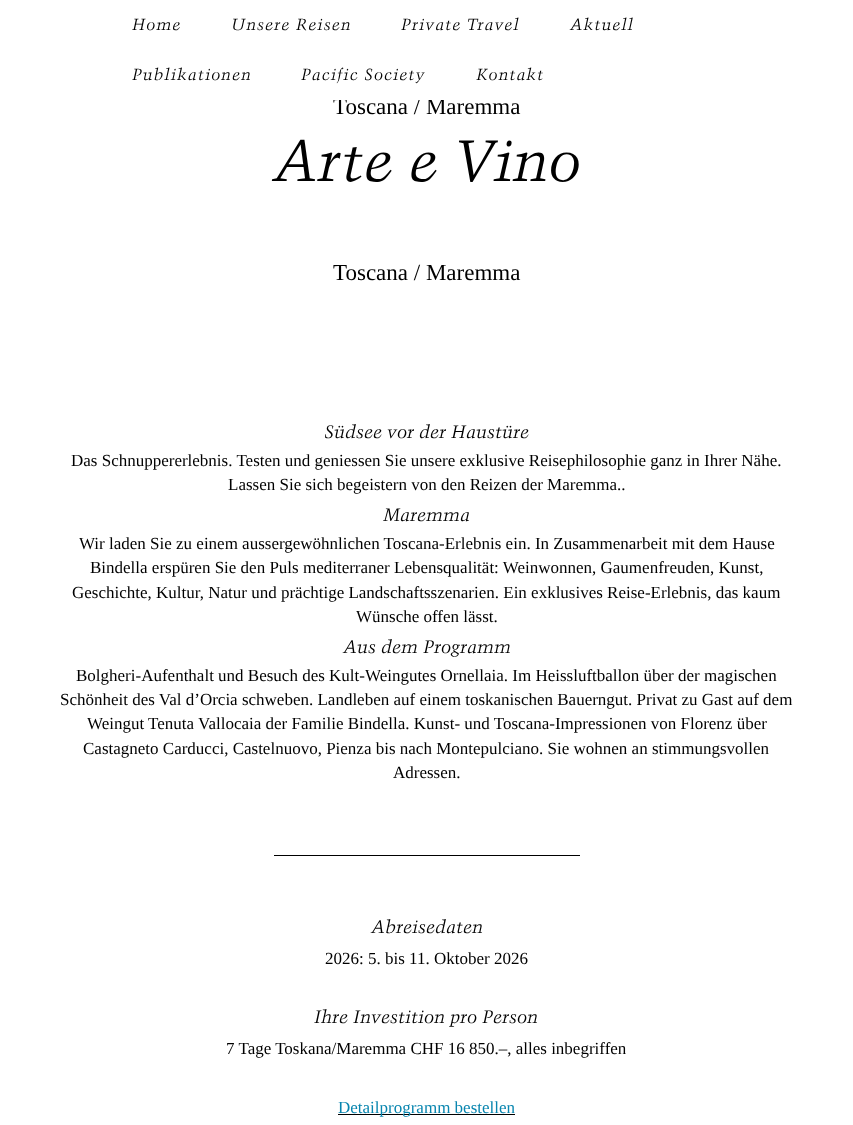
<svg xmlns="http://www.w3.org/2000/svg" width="853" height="1125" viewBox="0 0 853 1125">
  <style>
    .t1 { font: 23px Liberation Serif; fill: #000; }
    .t2 { font: italic 16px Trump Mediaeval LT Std; letter-spacing: 1px; fill: #000; }
    .t3 { font: italic 58px Trump Mediaeval LT Std; fill: #000; }
    .t4 { font: italic 18px Trump Mediaeval LT Std; fill: #000; }
    .t5 { font: 17px Liberation Serif; fill: #000; }
    .t6 { font: 17px Liberation Serif; fill: #0885af; }
  </style>
  <rect width="100%" height="100%" fill="#fff"/>
  <text x="333" y="114" class="t1">Toscana / Maremma</text>
  <rect x="333" y="98" width="113" height="2" fill="#fff"/>
  <text x="132" y="30" class="t2">Home</text>
  <text x="231" y="30" class="t2">Unsere Reisen</text>
  <text x="401" y="30" class="t2">Private Travel</text>
  <text x="570" y="30" class="t2">Aktuell</text>
  <text x="132" y="80" class="t2">Publikationen</text>
  <text x="301" y="80" class="t2">Pacific Society</text>
  <text x="476" y="80" class="t2">Kontakt</text>
  <text x="273" y="181" class="t3">Arte e Vino</text>
  <text x="333" y="280" class="t1">Toscana / Maremma</text>
  <text x="324" y="438" class="t4">Südsee vor der Haustüre</text>
  <text x="71" y="466" class="t5">Das Schnuppererlebnis. Testen und geniessen Sie unsere exklusive Reisephilosophie ganz in Ihrer Nähe.</text>
  <text x="228" y="490" class="t5">Lassen Sie sich begeistern von den Reizen der Maremma..</text>
  <text x="383" y="521" class="t4">Maremma</text>
  <text x="79" y="549" class="t5">Wir laden Sie zu einem aussergewöhnlichen Toscana-Erlebnis ein. In Zusammenarbeit mit dem Hause</text>
  <text x="90" y="573" class="t5">Bindella erspüren Sie den Puls mediterraner Lebensqualität: Weinwonnen, Gaumenfreuden, Kunst,</text>
  <text x="72" y="598" class="t5">Geschichte, Kultur, Natur und prächtige Landschaftsszenarien. Ein exklusives Reise-Erlebnis, das kaum</text>
  <text x="356" y="622" class="t5">Wünsche offen lässt.</text>
  <text x="343" y="653" class="t4">Aus dem Programm</text>
  <text x="76" y="681" class="t5">Bolgheri-Aufenthalt und Besuch des Kult-Weingutes Ornellaia. Im Heissluftballon über der magischen</text>
  <text x="60" y="705" class="t5">Schönheit des Val d’Orcia schweben. Landleben auf einem toskanischen Bauerngut. Privat zu Gast auf dem</text>
  <text x="87" y="729" class="t5">Weingut Tenuta Vallocaia der Familie Bindella. Kunst- und Toscana-Impressionen von Florenz über</text>
  <text x="83" y="754" class="t5">Castagneto Carducci, Castelnuovo, Pienza bis nach Montepulciano. Sie wohnen an stimmungsvollen</text>
  <text x="393" y="778" class="t5">Adressen.</text>
  <rect x="274" y="855" width="306" height="1" fill="#000"/>
  <text x="371" y="933" class="t4">Abreisedaten</text>
  <text x="325" y="964" class="t5">2026: 5. bis 11. Oktober 2026</text>
  <text x="314" y="1023" class="t4">Ihre Investition pro Person</text>
  <text x="226" y="1054" class="t5">7 Tage Toskana/Maremma CHF 16 850.–, alles inbegriffen</text>
  <rect x="338" y="1114" width="177" height="1" fill="#000"/>
  <text x="338" y="1113" class="t6">Detailprogramm bestellen</text>
</svg>
